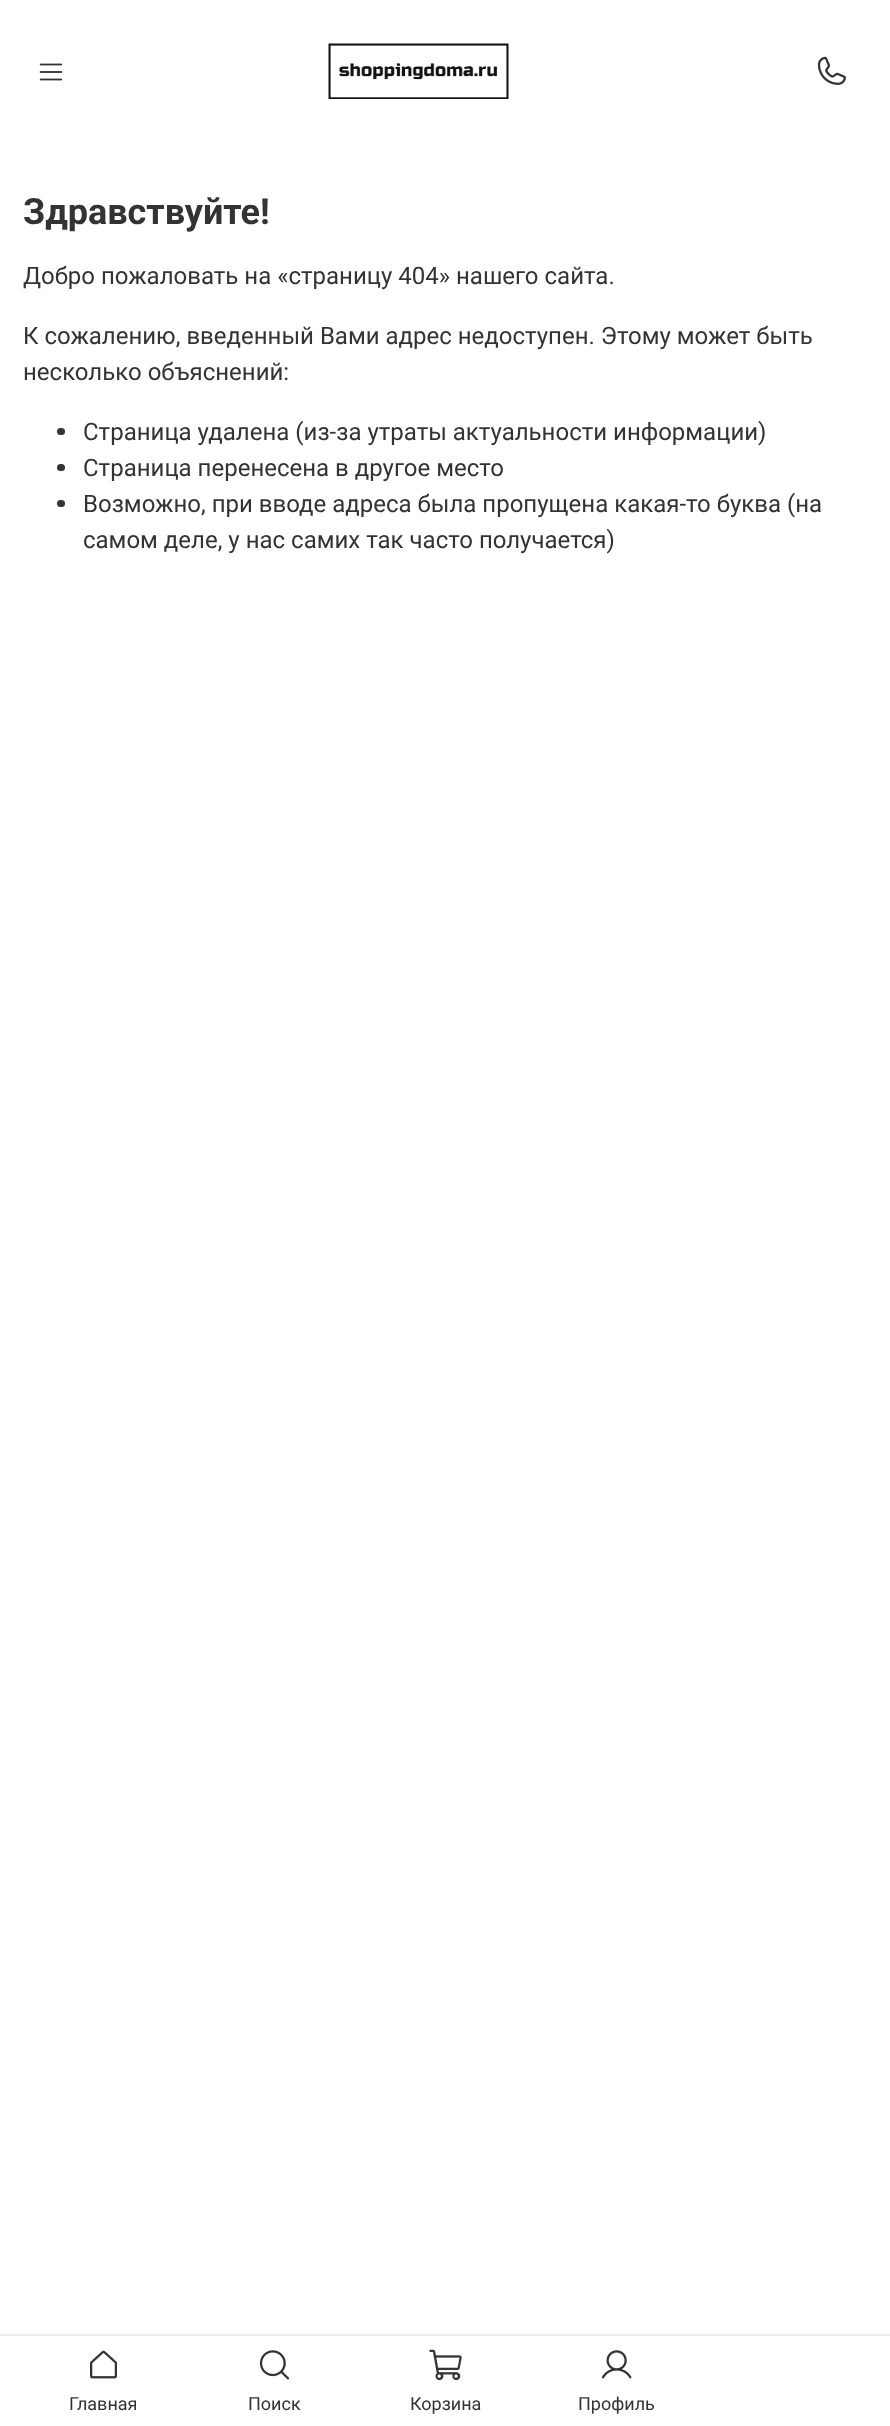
<svg xmlns="http://www.w3.org/2000/svg" width="890" height="2426" viewBox="0 0 890 2426">
  <style>
    .t1 { font: bold 36px Roboto; fill: #333; }
    .t2 { font: 24px Roboto; fill: #333; }
    .t3 { font: 18px Roboto; fill: #333; }
  </style>
  <rect width="100%" height="100%" fill="#fff"/>
  <image x="39" y="63" width="24" height="18" href="images/1.png"/>
  <image x="328" y="43" width="181" height="56" href="images/2.png"/>
  <image x="817" y="56" width="29" height="29" href="images/3.png"/>
  <text x="23" y="224" class="t1">Здравствуйте!</text>
  <text x="23" y="284" class="t2">Добро пожаловать на «страницу 404» нашего сайта.</text>
  <text x="23" y="344" class="t2">К сожалению, введенный Вами адрес недоступен. Этому может быть</text>
  <text x="23" y="380" class="t2">несколько объяснений:</text>
  <rect x="57" y="428" width="8" height="7" rx="3.5" fill="#333"/>
  <text x="83" y="440" class="t2">Страница удалена (из-за утраты актуальности информации)</text>
  <rect x="57" y="464" width="8" height="7" rx="3.5" fill="#333"/>
  <text x="83" y="476" class="t2">Страница перенесена в другое место</text>
  <rect x="57" y="500" width="8" height="7" rx="3.5" fill="#333"/>
  <text x="83" y="512" class="t2">Возможно, при вводе адреса была пропущена какая-то буква (на</text>
  <text x="83" y="548" class="t2">самом деле, у нас самих так часто получается)</text>
  <rect x="0" y="2334" width="890" height="2" fill="#ededed"/>
  <image x="90" y="2350" width="27" height="29" href="images/4.png"/>
  <text x="69" y="2410" class="t3">Главная</text>
  <image x="259" y="2350" width="31" height="30" href="images/5.png"/>
  <text x="248" y="2410" class="t3">Поиск</text>
  <image x="429" y="2349" width="33" height="32" href="images/6.png"/>
  <text x="410" y="2410" class="t3">Корзина</text>
  <image x="601" y="2350" width="31" height="29" href="images/7.png"/>
  <text x="578" y="2410" class="t3">Профиль</text>
</svg>
